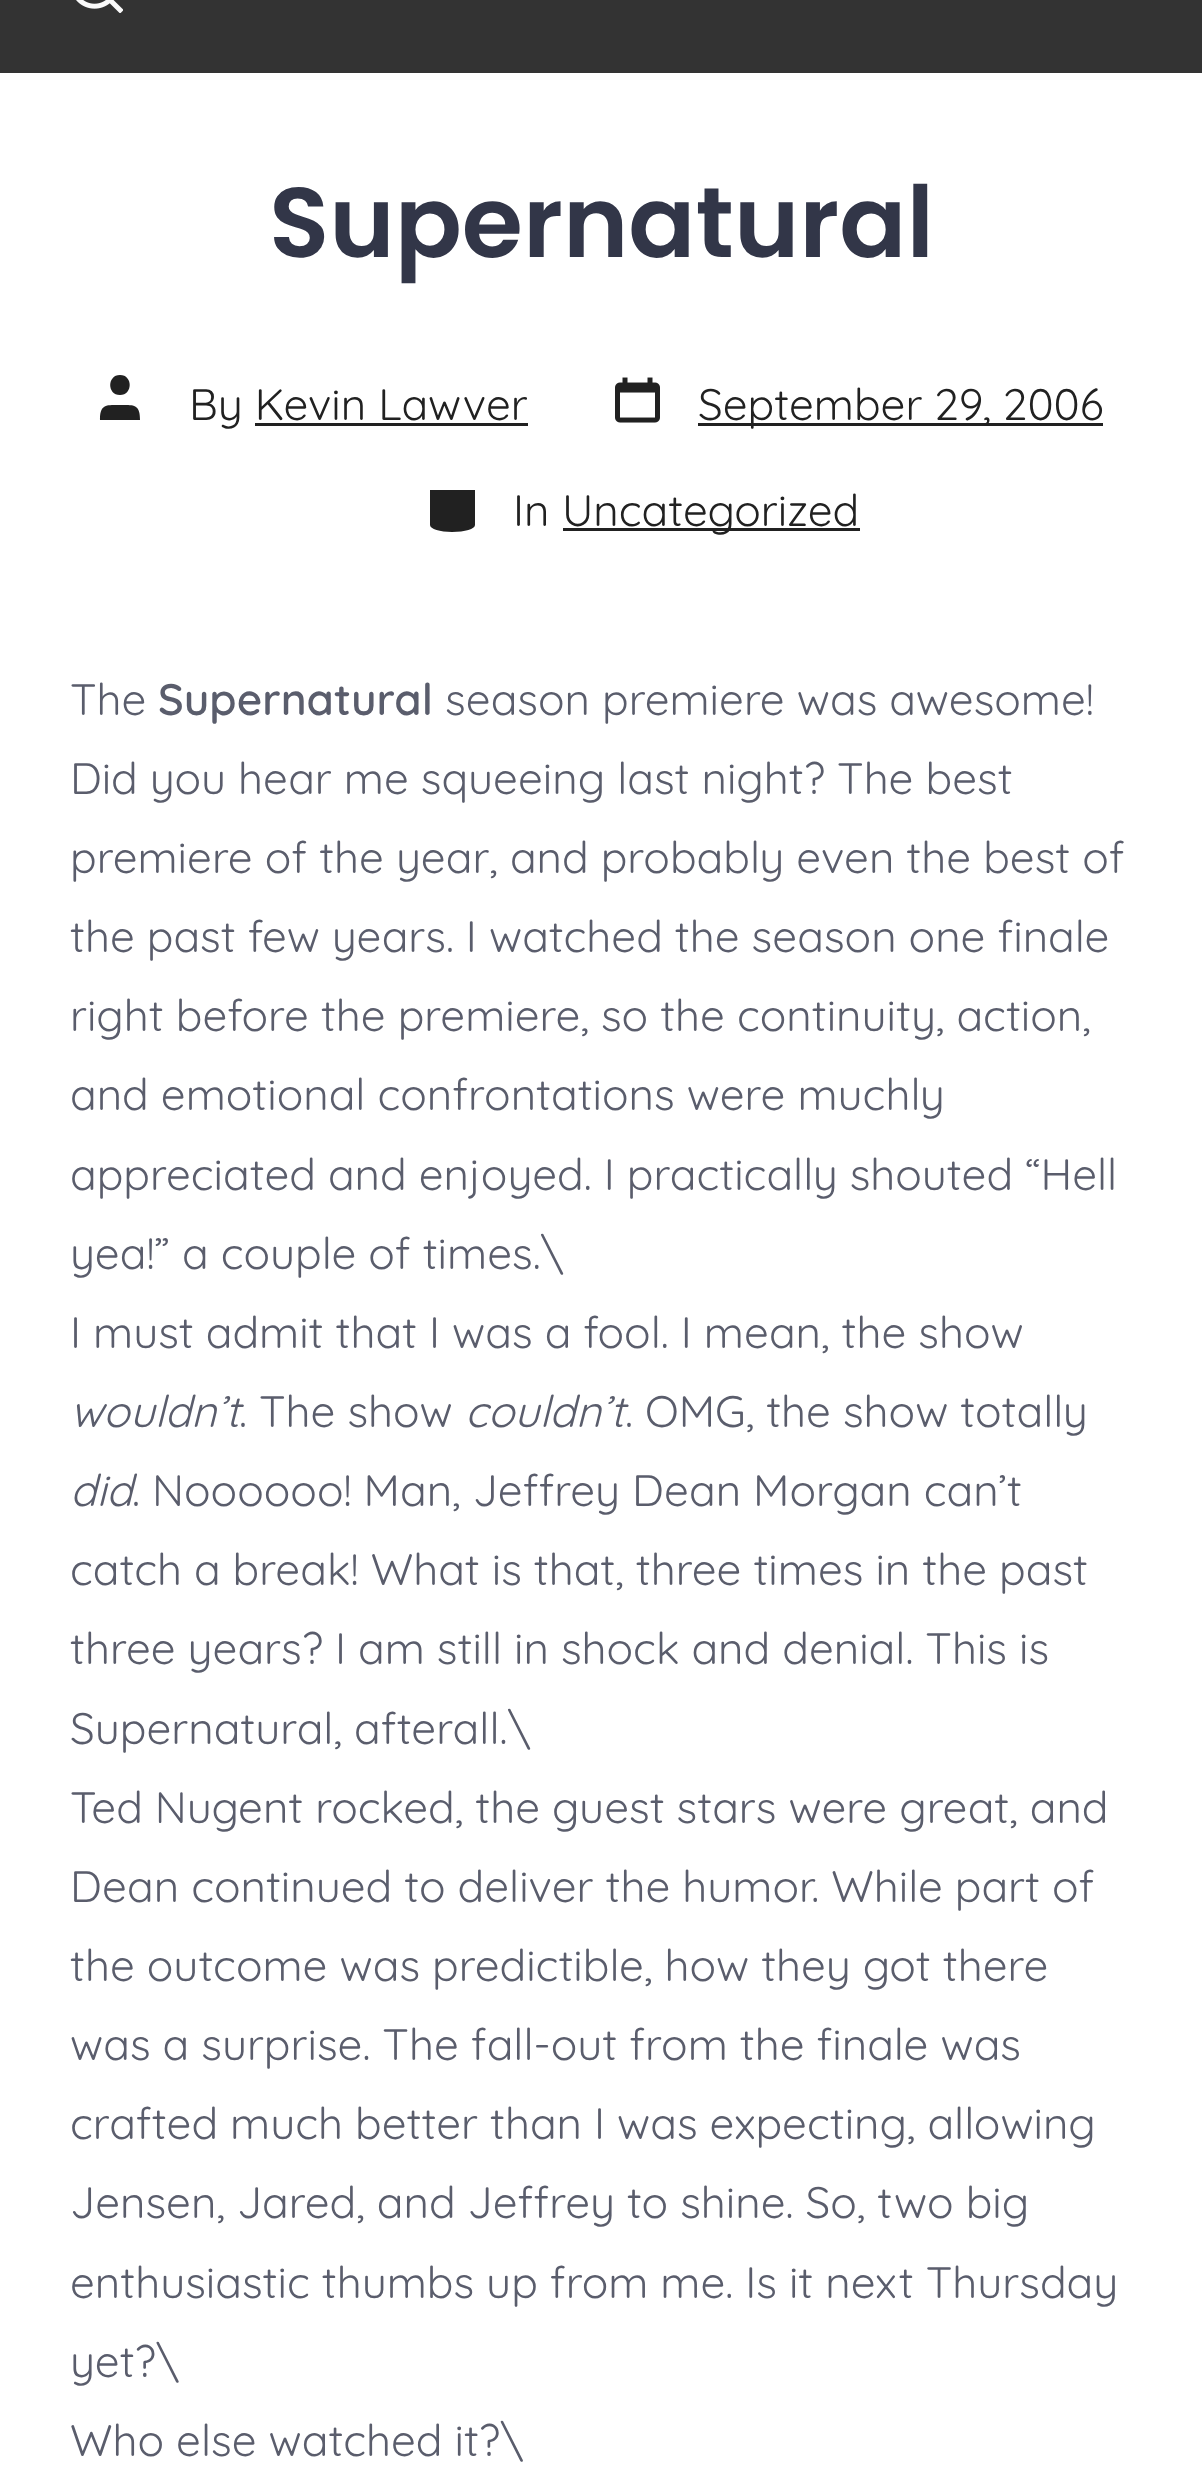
<svg xmlns="http://www.w3.org/2000/svg" width="1202" height="2469" viewBox="0 0 1202 2469">
  <style>
    .t1 { font: 600 99px Poppins; fill: #323648; }
    .t2 { font: 44px Quicksand; fill: #212121; }
    .t3 { font: 44px Quicksand; fill: #5a5d6c; }
    .t4 { font: 600 44px Quicksand; fill: #5a5d6c; }
    .t5 { font: italic 44px Quicksand; fill: #5a5d6c; }
  </style>
  <rect width="100%" height="100%" fill="#fff"/>
  <rect x="0" y="0" width="1202" height="73" fill="#333"/>
  <image x="76" y="0" width="47" height="13" href="images/1.png"/>
  <text x="269" y="257" class="t1">Supernatural</text>
  <path d="M140 420H100C100 404 106 405 120 405C134 405 140 404 140 420ZM120 395C107 395 107 375 120 375C133 375 133 395 120 395Z" fill="#212121"/>
  <text x="189" y="420" class="t2">By Kevin Lawver</text>
  <rect x="255" y="423" width="273" height="3" fill="#212121"/>
  <image x="615" y="377" width="45" height="46" href="images/2.png"/>
  <rect x="698" y="423" width="405" height="3" fill="#212121"/>
  <text x="698" y="420" class="t2">September 29, 2006</text>
  <path d="M430 490V525C430 529 440 532 452 532C465 532 475 529 475 525V490" fill="#212121"/>
  <text x="513" y="526" class="t2">In</text>
  <rect x="563" y="528" width="297" height="3" fill="#212121"/>
  <text x="562" y="526" class="t2">Uncategorized</text>
  <text x="70" y="715" class="t3">The</text>
  <text x="158" y="715" class="t4">Supernatural</text>
  <text x="445" y="715" class="t3">season premiere was awesome!</text>
  <text x="70" y="794" class="t3">Did you hear me squeeing last night? The best</text>
  <text x="70" y="873" class="t3">premiere of the year, and probably even the best of</text>
  <text x="70" y="952" class="t3">the past few years. I watched the season one finale</text>
  <text x="70" y="1031" class="t3">right before the premiere, so the continuity, action,</text>
  <text x="70" y="1110" class="t3">and emotional confrontations were muchly</text>
  <text x="70" y="1190" class="t3">appreciated and enjoyed. I practically shouted “Hell</text>
  <text x="70" y="1269" class="t3">yea!” a couple of times.\</text>
  <text x="70" y="1348" class="t3">I must admit that I was a fool. I mean, the show</text>
  <text x="70" y="1427" class="t5">wouldn’t</text>
  <text x="239" y="1427" class="t3">. The show</text>
  <text x="465" y="1427" class="t5">couldn’t</text>
  <text x="625" y="1427" class="t3">. OMG, the show totally</text>
  <text x="70" y="1506" class="t5">did</text>
  <text x="132" y="1506" class="t3">. Noooooo! Man, Jeffrey Dean Morgan can’t</text>
  <text x="70" y="1585" class="t3">catch a break! What is that, three times in the past</text>
  <text x="70" y="1664" class="t3">three years? I am still in shock and denial. This is</text>
  <text x="70" y="1744" class="t3">Supernatural, afterall.\</text>
  <text x="70" y="1823" class="t3">Ted Nugent rocked, the guest stars were great, and</text>
  <text x="70" y="1902" class="t3">Dean continued to deliver the humor. While part of</text>
  <text x="70" y="1981" class="t3">the outcome was predictible, how they got there</text>
  <text x="70" y="2060" class="t3">was a surprise. The fall-out from the finale was</text>
  <text x="70" y="2139" class="t3">crafted much better than I was expecting, allowing</text>
  <text x="70" y="2218" class="t3">Jensen, Jared, and Jeffrey to shine. So, two big</text>
  <text x="70" y="2298" class="t3">enthusiastic thumbs up from me. Is it next Thursday</text>
  <text x="70" y="2377" class="t3">yet?\</text>
  <text x="70" y="2456" class="t3">Who else watched it?\</text>
</svg>
